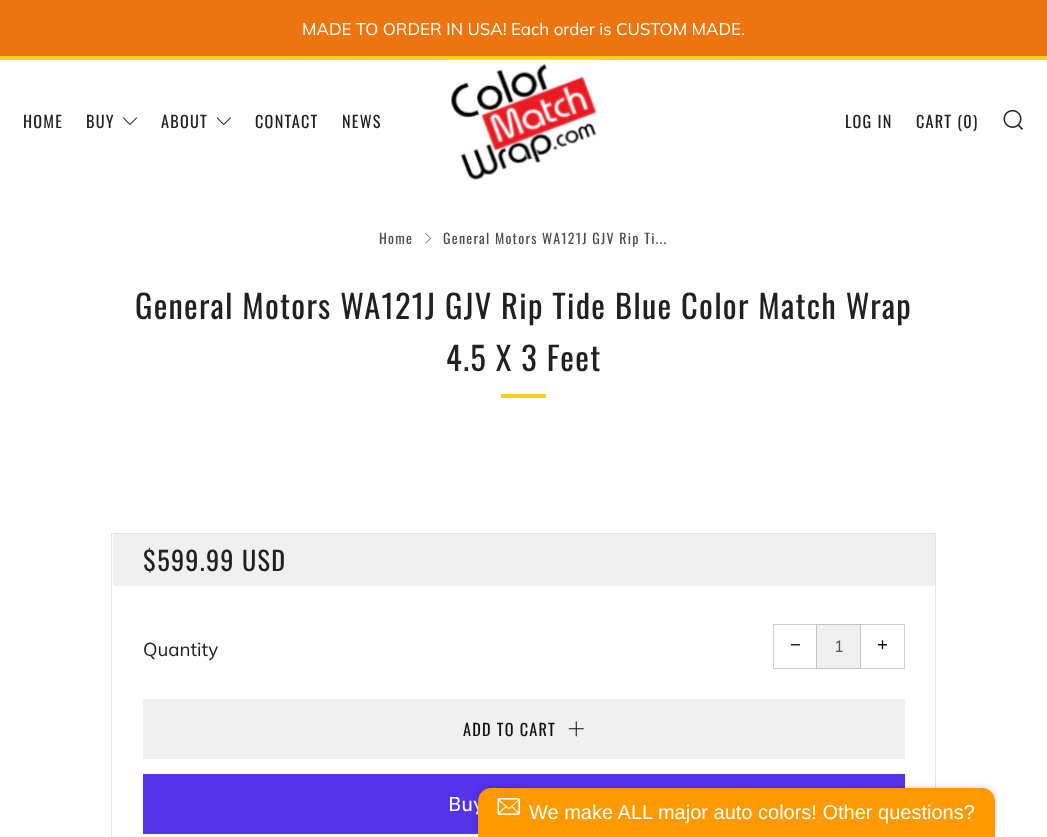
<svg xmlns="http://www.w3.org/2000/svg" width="1047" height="837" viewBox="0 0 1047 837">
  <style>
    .t1 { font: 16.9px Muli; fill: #fff; }
    .t2 { font: 16.25px Oswald; letter-spacing: 1.25px; fill: #212121; }
    .t3 { font: 14px Oswald; letter-spacing: 1.25px; fill: #4d4d4d; }
    .t4 { font: 32.5px Oswald; letter-spacing: 1.25px; fill: #212121; }
    .t5 { font: 26.25px Oswald; letter-spacing: 1.25px; fill: #212121; }
    .t6 { font: 18.75px Muli; fill: #212121; }
    .t7 { font: 18.75px Liberation Sans; fill: #111; }
    .t8 { font: 16.25px Muli; fill: #555; }
    .t9 { font: 16.25px Oswald; letter-spacing: 1.25px; fill: #111; }
    .t10 { font: 20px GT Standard; fill: #fff; }
    .t11 { font: 20px Liberation Sans; fill: #fff; }
  </style>
  <rect width="100%" height="100%" fill="#fff"/>
  <rect x="0" y="0" width="1047" height="56" fill="#ec750f"/>
  <text x="302" y="35" class="t1">MADE TO ORDER IN USA! Each order is CUSTOM MADE.</text>
  <rect x="0" y="56" width="1047" height="4" fill="#fad018"/>
  <image x="446" y="59" width="156" height="121" href="images/1.png"/>
  <text x="23" y="128" class="t2">HOME</text>
  <text x="86" y="128" class="t2">BUY</text>
  <image x="122" y="117" width="16" height="8" href="images/2.png"/>
  <text x="161" y="128" class="t2">ABOUT</text>
  <image x="216" y="117" width="15" height="9" href="images/3.png"/>
  <text x="255" y="128" class="t2">CONTACT</text>
  <text x="342" y="128" class="t2">NEWS</text>
  <text x="845" y="128" class="t2">LOG IN</text>
  <text x="916" y="128" class="t2">CART (0)</text>
  <image x="1003" y="109" width="20" height="21" href="images/4.png"/>
  <text x="379" y="244" class="t3">Home</text>
  <image x="425" y="233" width="6" height="11" href="images/5.png"/>
  <text x="443" y="244" class="t3">General Motors WA121J GJV Rip Ti...</text>
  <text x="135" y="319" class="t4">General Motors WA121J GJV Rip Tide Blue Color Match Wrap</text>
  <text x="446" y="371" class="t4">4.5 X 3 Feet</text>
  <rect x="501" y="394" width="45" height="4" fill="#fad018"/>
  <rect x="111.5" y="533.5" width="824" height="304" fill="none" stroke="#e4e4e4"/>
  <rect x="113" y="534" width="822" height="52" fill="#f0f0f0"/>
  <text x="143" y="571" class="t5">$599.99 USD</text>
  <text x="143" y="656" class="t6">Quantity</text>
  <rect x="773.5" y="624.5" width="44" height="44" fill="none" stroke="#cfcfcf"/>
  <text x="790" y="651" class="t7">−</text>
  <rect x="816.5" y="624.5" width="44" height="44" fill="#f0f0f0" stroke="#c3c3c3"/>
  <text x="834" y="652" class="t8">1</text>
  <rect x="860" y="624" width="1" height="45" fill="#ffffffcc"/>
  <rect x="860.5" y="624.5" width="44" height="44" fill="none" stroke="#11111133"/>
  <text x="877" y="651" class="t7">+</text>
  <rect x="143" y="699" width="762" height="60" fill="#f0f0f0"/>
  <text x="463" y="736" class="t9">ADD TO CART</text>
  <image x="568" y="721" width="16" height="16" href="images/6.png"/>
  <rect x="143" y="774" width="762" height="60" fill="#5433eb"/>
  <text x="448" y="811" class="t10">Buy</text>
  <rect x="478" y="788" width="517" height="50" rx="13" fill="#00000033" filter="blur(3px)"/>
  <path d="M491 788H982C989 788 995 794 995 801V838H478V801C478 794 484 788 491 788Z" fill="#f90"/>
  <image x="497" y="798" width="23" height="17" href="images/7.png"/>
  <text x="529" y="819" class="t11">We make ALL major auto colors! Other questions?</text>
</svg>
